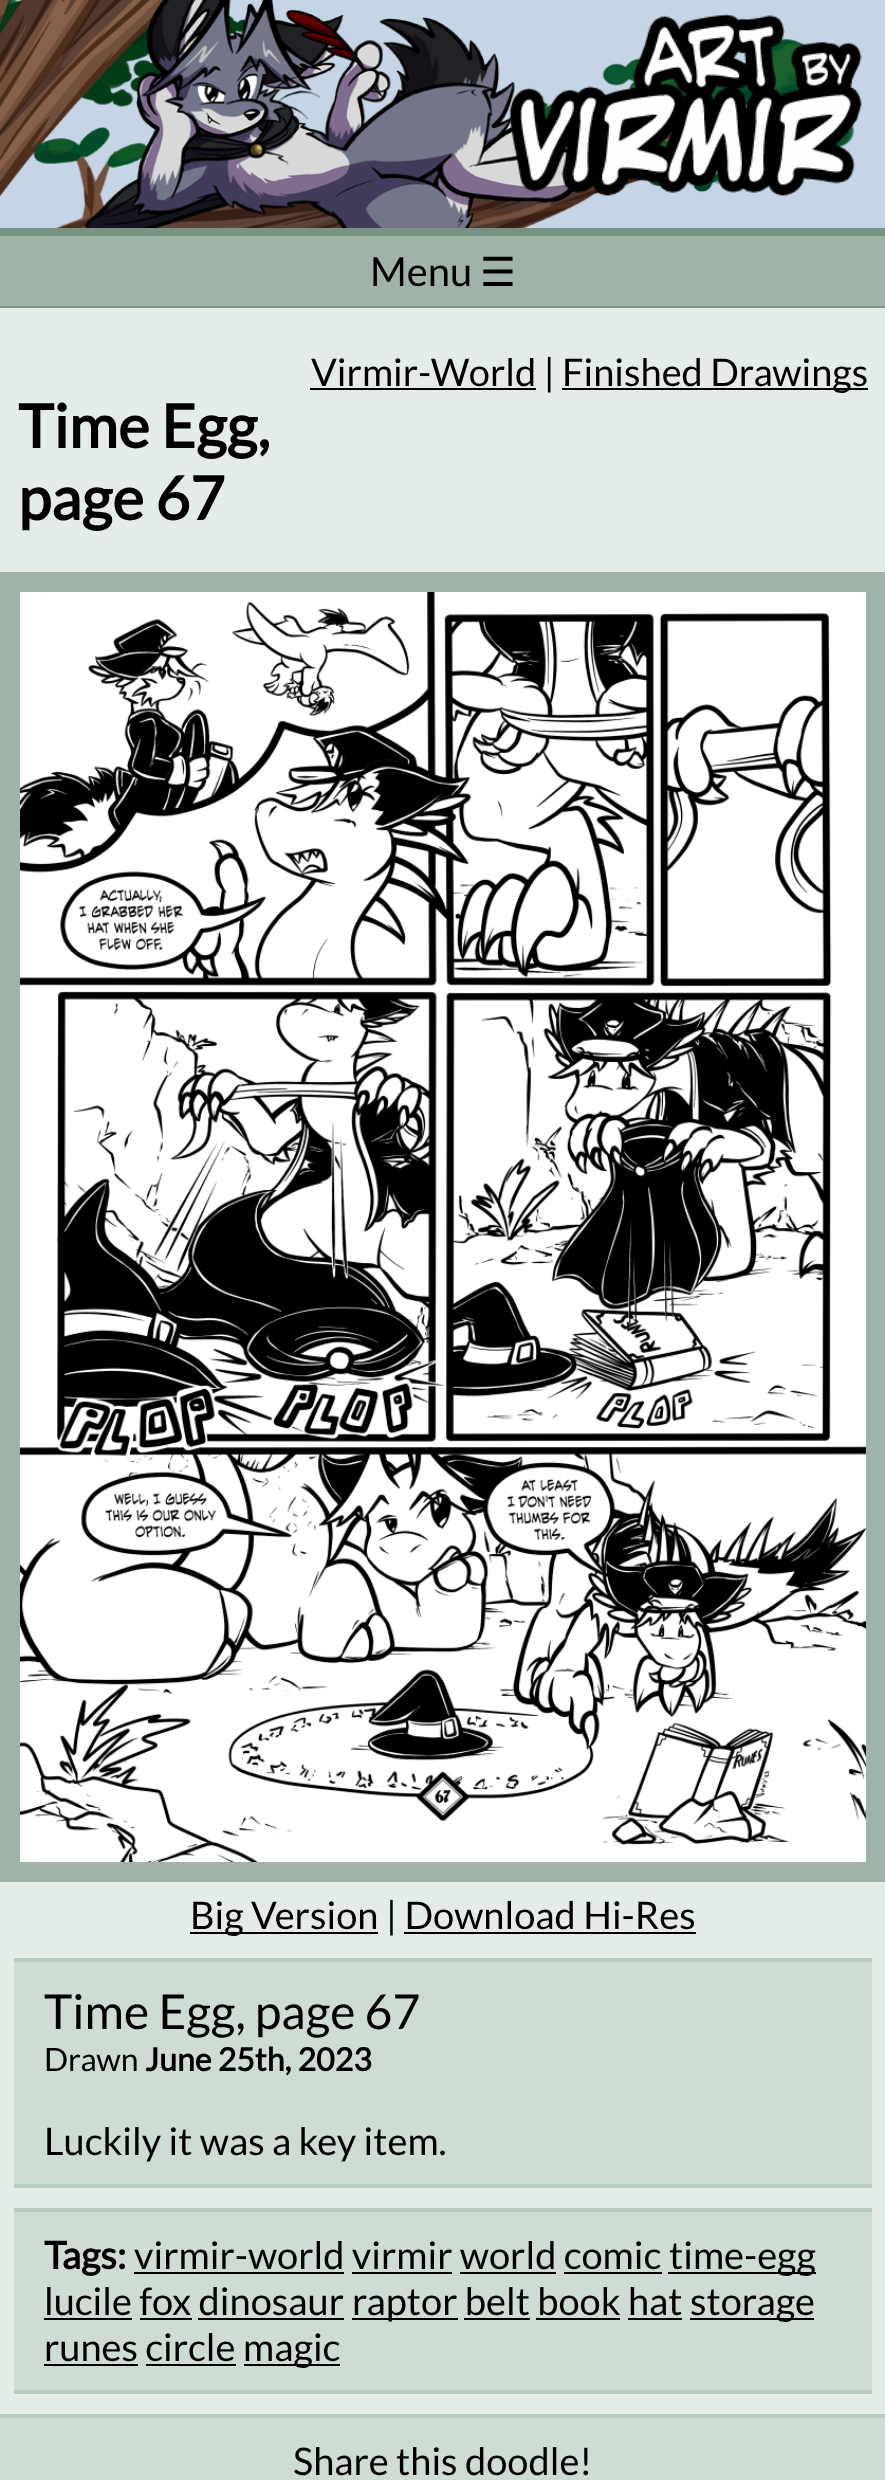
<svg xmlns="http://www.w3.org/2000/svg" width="885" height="2480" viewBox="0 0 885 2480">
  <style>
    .t1 { font: 40px Lato; fill: #000; }
    .t2 { font: 40px DejaVu Sans; fill: #000; }
    .t3 { font: 38px Lato; fill: #000; }
    .t4 { font: bold 60px Lato; fill: #000; }
    .t5 { font: 48px Lato; fill: #000; }
    .t6 { font: 32px Lato; fill: #000; }
    .t7 { font: bold 32px Lato; fill: #000; }
    .t8 { font: bold 38px Lato; fill: #000; }
  </style>
  <rect width="100%" height="100%" fill="#c6d5e5"/>
  <image x="0" y="0" width="859" height="228" href="images/1.png"/>
  <image x="509" y="14" width="353" height="182" href="images/2.png"/>
  <rect x="0" y="236" width="885" height="70" fill="#9fb3a7"/>
  <rect x="0" y="228" width="885" height="8" fill="#799383"/>
  <rect x="0" y="306" width="885" height="2" fill="#799383"/>
  <text x="370" y="286" class="t1">Menu</text>
  <text x="480" y="286" class="t2">☰</text>
  <rect x="0" y="308" width="885" height="2106" fill="#e4ece7"/>
  <rect x="310" y="388" width="226" height="2" fill="#000"/>
  <text x="311" y="386" class="t3">Virmir-World |</text>
  <rect x="562" y="388" width="306" height="2" fill="#000"/>
  <text x="562" y="386" class="t3">Finished Drawings</text>
  <text x="18" y="448" class="t4">Time Egg,</text>
  <text x="18" y="520" class="t4">page 67</text>
  <rect x="10" y="582" width="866" height="1290" fill="none" stroke="#9fb3a7" stroke-width="20"/>
  <image x="20" y="592" width="846" height="1270" href="images/3.png"/>
  <rect x="190" y="1932" width="188" height="2" fill="#000"/>
  <text x="190" y="1929" class="t3">Big Version | Download Hi-Res</text>
  <rect x="404" y="1932" width="292" height="2" fill="#000"/>
  <rect x="14" y="1962" width="858" height="222" fill="#cedcd4"/>
  <rect x="14" y="1958" width="858" height="4" fill="#b9cbc0"/>
  <rect x="14" y="2184" width="858" height="4" fill="#b9cbc0"/>
  <text x="44" y="2029" class="t5">Time Egg, page 67</text>
  <text x="44" y="2071" class="t6">Drawn</text>
  <text x="145" y="2071" class="t7">June 25th, 2023</text>
  <text x="44" y="2155" class="t3">Luckily it was a key item.</text>
  <rect x="14" y="2212" width="858" height="178" fill="#cedcd4"/>
  <rect x="14" y="2208" width="858" height="4" fill="#b9cbc0"/>
  <rect x="14" y="2390" width="858" height="4" fill="#b9cbc0"/>
  <text x="44" y="2269" class="t8">Tags:</text>
  <text x="134" y="2269" class="t3">virmir-world virmir world comic</text>
  <rect x="134" y="2272" width="210" height="2" fill="#000"/>
  <rect x="668" y="2272" width="148" height="2" fill="#000"/>
  <text x="669" y="2269" class="t3">time-egg</text>
  <rect x="352" y="2272" width="100" height="2" fill="#000"/>
  <rect x="460" y="2272" width="96" height="2" fill="#000"/>
  <rect x="564" y="2272" width="98" height="2" fill="#000"/>
  <text x="44" y="2315" class="t3">lucile fox dinosaur</text>
  <rect x="44" y="2318" width="88" height="2" fill="#000"/>
  <rect x="352" y="2318" width="106" height="2" fill="#000"/>
  <text x="352" y="2315" class="t3">raptor belt book hat</text>
  <rect x="690" y="2318" width="124" height="2" fill="#000"/>
  <text x="690" y="2315" class="t3">storage</text>
  <rect x="140" y="2318" width="52" height="2" fill="#000"/>
  <rect x="198" y="2318" width="146" height="2" fill="#000"/>
  <rect x="464" y="2318" width="66" height="2" fill="#000"/>
  <rect x="536" y="2318" width="84" height="2" fill="#000"/>
  <rect x="628" y="2318" width="54" height="2" fill="#000"/>
  <text x="44" y="2361" class="t3">runes circle</text>
  <rect x="44" y="2364" width="94" height="2" fill="#000"/>
  <rect x="244" y="2364" width="96" height="2" fill="#000"/>
  <text x="243" y="2361" class="t3">magic</text>
  <rect x="146" y="2364" width="90" height="2" fill="#000"/>
  <rect x="0" y="2418" width="885" height="62" fill="#cedcd4"/>
  <rect x="0" y="2414" width="885" height="4" fill="#b9cbc0"/>
  <text x="293" y="2475" class="t3">Share this doodle!</text>
</svg>
